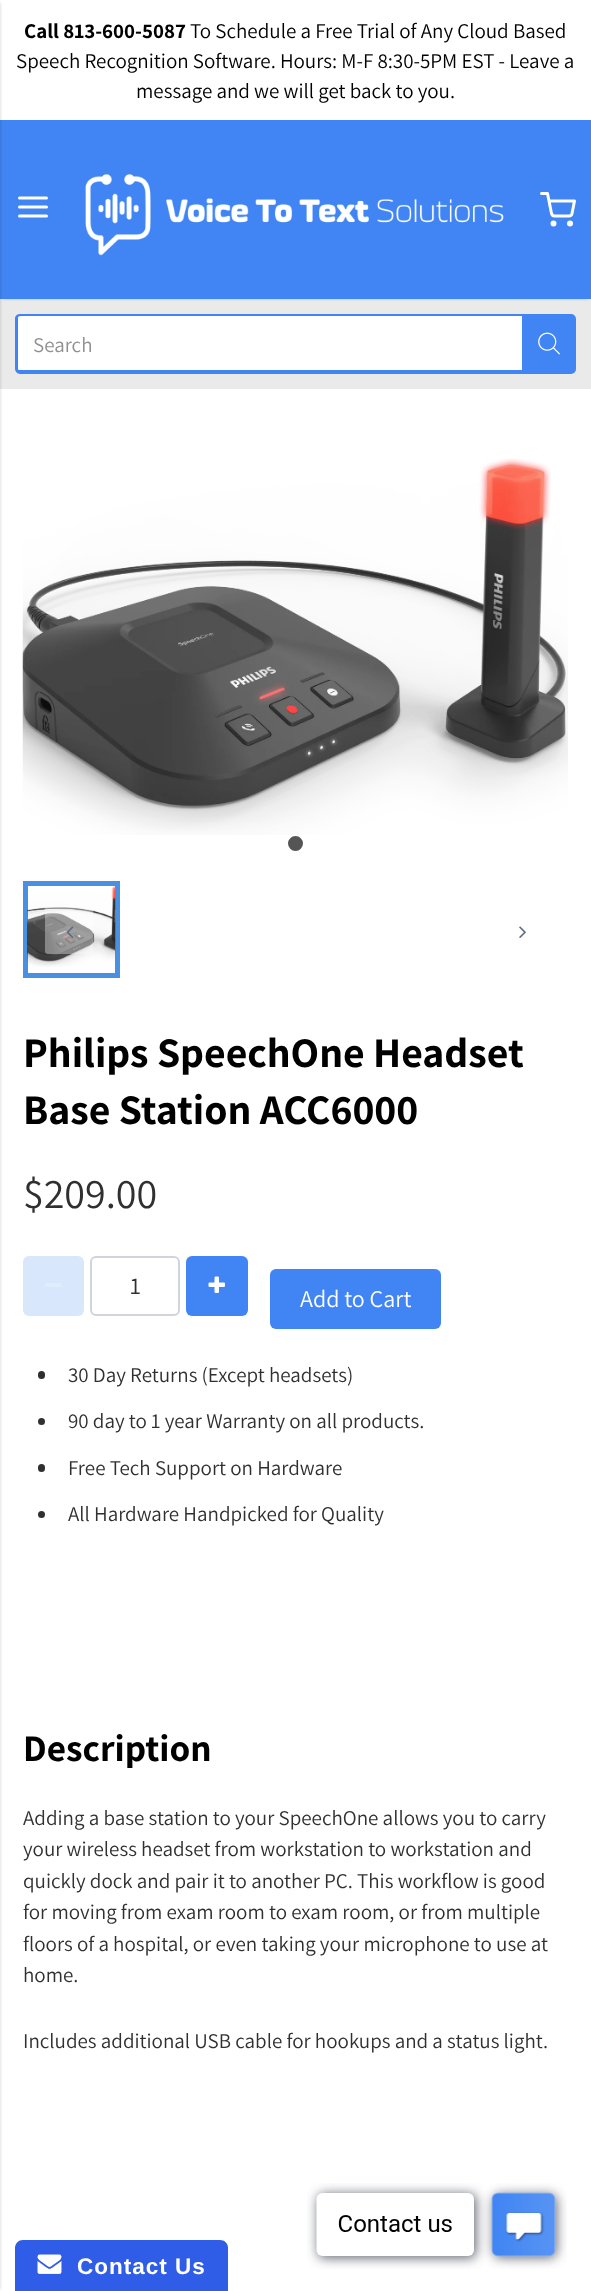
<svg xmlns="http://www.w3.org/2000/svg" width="591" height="2291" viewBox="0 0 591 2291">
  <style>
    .t1 { font: bold 21px Assistant; fill: #000; }
    .t2 { font: 21px Assistant; fill: #000; }
    .t3 { font: 21px Assistant; fill: #8f8f8f; }
    .t4 { font: bold 42px Assistant; fill: #000; }
    .t5 { font: 42px Assistant; fill: #303030; }
    .t6 { font: 24px Assistant; fill: #303030; }
    .t7 { font: 24px Assistant; fill: #fff; }
    .t8 { font: 21px Assistant; fill: #303030; }
    .t9 { font: bold 37.5px Assistant; fill: #000; }
    .t10 { font: bold 22.5px Liberation Sans; letter-spacing: 1px; fill: #fff; }
  </style>
  <rect width="100%" height="100%" fill="#fff"/>
  <rect x="0" y="299" width="591" height="90" fill="#eaeaea"/>
  <rect x="3" y="126" width="585" height="173" fill="#00000033" filter="blur(1.5px)"/>
  <rect x="0" y="120" width="591" height="179" fill="#4085f3"/>
  <rect x="-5" y="3" width="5" height="2286" fill="#00000033" filter="blur(1.5px)"/>
  <text x="24" y="38" class="t1">Call 813-600-5087</text>
  <text x="190" y="38" class="t2">To Schedule a Free Trial of Any Cloud Based</text>
  <text x="16" y="68" class="t2">Speech Recognition Software. Hours: M-F 8:30-5PM EST - Leave a</text>
  <text x="136" y="98" class="t2">message and we will get back to you.</text>
  <path d="M19.5 207H46.5M19.5 198H46.5M19.5 216H46.5" fill="none" stroke="#fff" stroke-width="3" stroke-linecap="round" stroke-linejoin="round"/>
  <image x="85" y="173" width="419" height="83" href="images/1.png"/>
  <path d="M541.5 193.5H547.5L551.5 213.5C552 215 553 216 554.5 216H569C570.5 216 572 215 572 213.5L574.5 201H549" fill="none" stroke="#fff" stroke-width="3" stroke-linecap="round" stroke-linejoin="round"/>
  <circle cx="553.5" cy="223.5" r="1.5" fill="none" stroke="#fff" stroke-width="3"/>
  <circle cx="570" cy="223.5" r="1.5" fill="none" stroke="#fff" stroke-width="3"/>
  <path d="M20 314H522V374H20C17 374 15 372 15 369V319C15 316 17 314 20 314Z" fill="#fff"/>
  <path d="M20 314H522V374H20C17 374 15 371 15 369V318C15 316 17 314 20 314ZM20 316H522V370H20C19 370 18 370 18 369V317Z" fill="#4085f3" fill-rule="evenodd"/>
  <text x="33" y="352" class="t3">Search</text>
  <path d="M523.5 315.5H571C573 315.5 574.5 317 574.5 319V369C574.5 371 573 372.5 571 372.5H523.5Z" fill="#4085f3" stroke="#4085f3" stroke-width="3"/>
  <image x="538" y="332" width="22" height="23" href="images/2.png"/>
  <image x="22" y="458" width="546" height="377" href="images/3.png"/>
  <circle cx="295.5" cy="843.5" r="6.5" fill="#555" stroke="#555" stroke-width="2"/>
  <rect x="25.5" y="883.5" width="92" height="92" fill="none" stroke="#4a90e2" stroke-width="5"/>
  <image x="27" y="886" width="89" height="81" href="images/4.png"/>
  <rect x="45" y="906" width="48" height="48" rx="3" fill="#ffffff59"/>
  <image x="66" y="926" width="8" height="12" href="images/5.png"/>
  <image x="519" y="926" width="7" height="12" href="images/6.png"/>
  <text x="23" y="1067" class="t4">Philips SpeechOne Headset</text>
  <text x="23" y="1124" class="t4">Base Station ACC6000</text>
  <text x="23" y="1208" class="t5">$209.00</text>
  <rect x="23" y="1256" width="61" height="60" rx="6" fill="#d9e7fd"/>
  <rect x="45" y="1283" width="16" height="4" fill="#e1ecfd"/>
  <rect x="91" y="1257" width="88" height="58" rx="5" fill="none" stroke="#d1d5db" stroke-width="2"/>
  <text x="130" y="1294" class="t6">1</text>
  <rect x="186" y="1256" width="62" height="60" rx="6" fill="#4085f3"/>
  <image x="208" y="1276" width="17" height="17" href="images/7.png"/>
  <rect x="270" y="1269" width="171" height="60" rx="6" fill="#4085f3"/>
  <text x="300" y="1307" class="t7">Add to Cart</text>
  <rect x="38" y="1371" width="7" height="8" rx="3.5" fill="#303030"/>
  <text x="68" y="1382" class="t8">30 Day Returns (Except headsets)</text>
  <circle cx="41.5" cy="1421.5" r="3.5" fill="#303030"/>
  <text x="68" y="1428" class="t8">90 day to 1 year Warranty on all products.</text>
  <rect x="38" y="1464" width="7" height="8" rx="3.5" fill="#303030"/>
  <text x="68" y="1475" class="t8">Free Tech Support on Hardware</text>
  <circle cx="41.5" cy="1514.5" r="3.5" fill="#303030"/>
  <text x="68" y="1521" class="t8">All Hardware Handpicked for Quality</text>
  <text x="23" y="1761" class="t9">Description</text>
  <text x="23" y="1825" class="t8">Adding a base station to your SpeechOne allows you to carry</text>
  <text x="23" y="1856" class="t8">your wireless headset from workstation to workstation and</text>
  <text x="23" y="1888" class="t8">quickly dock and pair it to another PC. This workflow is good</text>
  <text x="23" y="1919" class="t8">for moving from exam room to exam room, or from multiple</text>
  <text x="23" y="1951" class="t8">floors of a hospital, or even taking your microphone to use at</text>
  <text x="23" y="1982" class="t8">home.</text>
  <text x="23" y="2048" class="t8">Includes additional USB cable for hookups and a status light.</text>
  <path d="M23 2240H220C224.5 2240 228 2243.5 228 2248V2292H15V2248C15 2243.5 18.5 2240 23 2240Z" fill="#2f5de7"/>
  <image x="37" y="2254" width="25" height="20" href="images/8.png"/>
  <text x="77" y="2274" class="t10">Contact Us</text>
  <image x="307" y="2183" width="260" height="86" href="images/9.png"/>
</svg>
